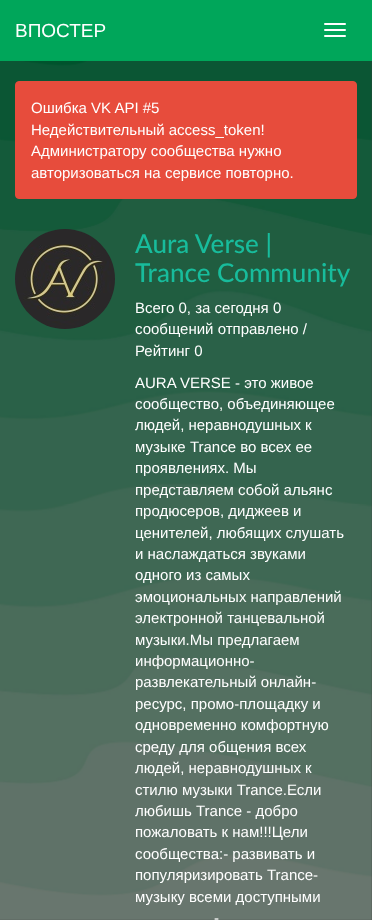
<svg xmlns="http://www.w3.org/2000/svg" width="372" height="920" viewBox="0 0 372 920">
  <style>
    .t1 { font: 19px Liberation Sans; fill: #fff; }
    .t2 { font: 15px Liberation Sans; fill: #fff; }
    .t3 { font: 500 26px Lato; fill: #18bc9c; }
  </style>
  <rect width="100%" height="100%" fill="#404040"/>
  <image x="0" y="61" width="372" height="859" href="images/1.png"/>
  <rect x="0" y="0" width="372" height="61" fill="#00a65a"/>
  <text x="15" y="37" class="t1">ВПОСТЕР</text>
  <rect x="324" y="23" width="22" height="2" rx="1" fill="#fff"/>
  <rect x="324" y="29" width="22" height="2" rx="1" fill="#fff"/>
  <rect x="324" y="35" width="22" height="2" rx="1" fill="#fff"/>
  <rect x="15.5" y="81.5" width="341" height="117" rx="3.5" fill="#e74c3c" stroke="#e74c3c"/>
  <text x="31" y="113" class="t2">Ошибка VK API #5</text>
  <text x="31" y="135" class="t2">Недействительный access_token!</text>
  <text x="31" y="156" class="t2">Администратору сообщества нужно</text>
  <text x="31" y="178" class="t2">авторизоваться на сервисе повторно.</text>
  <image x="15" y="229" width="100" height="100" href="images/2.png"/>
  <text x="135" y="253" class="t3">Aura Verse |</text>
  <text x="135" y="282" class="t3">Trance Community</text>
  <text x="135" y="313" class="t2">Всего 0, за сегодня 0</text>
  <text x="135" y="334" class="t2">сообщений отправлено /</text>
  <text x="135" y="356" class="t2">Рейтинг 0</text>
  <text x="135" y="388" class="t2">AURA VERSE - это живое</text>
  <text x="135" y="409" class="t2">сообщество, объединяющее</text>
  <text x="135" y="430" class="t2">людей, неравнодушных к</text>
  <text x="135" y="452" class="t2">музыке Trance во всех ее</text>
  <text x="135" y="473" class="t2">проявлениях. Мы</text>
  <text x="135" y="495" class="t2">представляем собой альянс</text>
  <text x="135" y="516" class="t2">продюсеров, диджеев и</text>
  <text x="135" y="538" class="t2">ценителей, любящих слушать</text>
  <text x="135" y="559" class="t2">и наслаждаться звуками</text>
  <text x="135" y="580" class="t2">одного из самых</text>
  <text x="135" y="602" class="t2">эмоциональных направлений</text>
  <text x="135" y="623" class="t2">электронной танцевальной</text>
  <text x="135" y="645" class="t2">музыки.Мы предлагаем</text>
  <text x="135" y="666" class="t2">информационно-</text>
  <text x="135" y="687" class="t2">развлекательный онлайн-</text>
  <text x="135" y="709" class="t2">ресурс, промо-площадку и</text>
  <text x="135" y="730" class="t2">одновременно комфортную</text>
  <text x="135" y="752" class="t2">среду для общения всех</text>
  <text x="135" y="773" class="t2">людей, неравнодушных к</text>
  <text x="135" y="795" class="t2">стилю музыки Trance.Если</text>
  <text x="135" y="816" class="t2">любишь Trance - добро</text>
  <text x="135" y="837" class="t2">пожаловать к нам!!!Цели</text>
  <text x="135" y="859" class="t2">сообщества:- развивать и</text>
  <text x="135" y="880" class="t2">популяризировать Trance-</text>
  <text x="135" y="902" class="t2">музыку всеми доступными</text>
  <text x="214" y="923" class="t2">-</text>
</svg>
